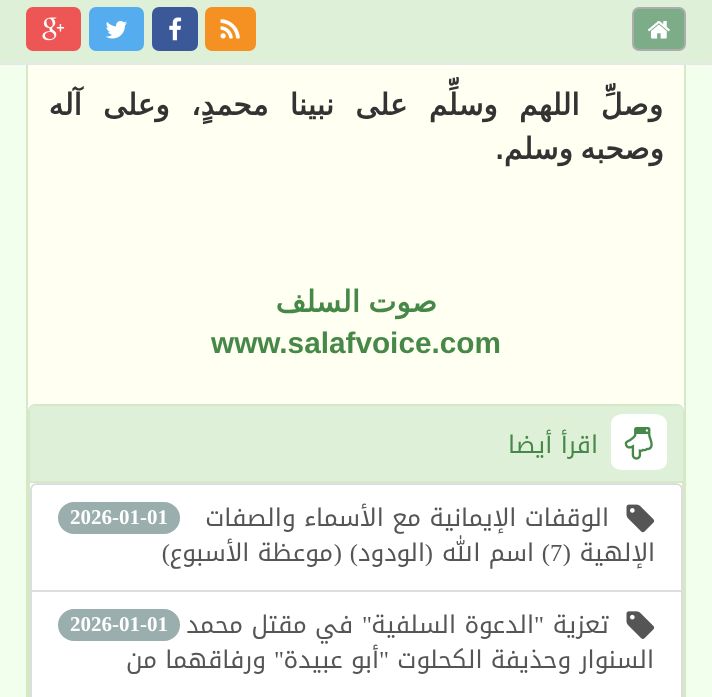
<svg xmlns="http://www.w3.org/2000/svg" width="712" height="697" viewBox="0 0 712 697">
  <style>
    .t1 { font: bold 29.75px DejaVu Sans; direction: rtl; fill: #333; }
    .t2 { font: bold 29.75px DejaVu Sans; direction: rtl; fill: #468847; }
    .t3 { font: bold 29.75px Liberation Sans; fill: #468847; }
    .t4 { font: 24.5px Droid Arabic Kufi; direction: rtl; fill: #468847; }
    .t5 { font: 24.5px Droid Arabic Kufi; direction: rtl; fill: #555; }
    .t6 { font: bold 21px Liberation Serif; fill: #fff; }
    .t7 { font: 24.5px Liberation Serif; direction: rtl; fill: #555; }
    .t8 { font: 24.5px Liberation Serif; fill: #555; }
  </style>
  <rect width="100%" height="100%" fill="#f1ffec"/>
  <rect x="28" y="404" width="656" height="86" fill="#fff"/>
  <rect x="27" y="-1" width="658" height="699" fill="none" stroke="#d6e9c6" stroke-width="2"/>
  <rect x="0" y="0" width="712" height="63" fill="#dff0d8"/>
  <rect x="0" y="63" width="712" height="2" fill="#e7e7e7"/>
  <rect x="633" y="8" width="52" height="42" rx="6" fill="#7dac89" stroke="#adadad" stroke-width="2"/>
  <image x="647" y="21" width="23" height="18" href="images/1.png"/>
  <rect x="206" y="8" width="49" height="42" rx="6" fill="#f59122" stroke="#f59122" stroke-width="2"/>
  <image x="220" y="19" width="20" height="20" href="images/2.png"/>
  <rect x="153" y="8" width="44" height="42" rx="6" fill="#3b5998" stroke="#3b5998" stroke-width="2"/>
  <image x="169" y="17" width="13" height="24" href="images/3.png"/>
  <rect x="90" y="8" width="53" height="42" rx="6" fill="#55acee" stroke="#55acee" stroke-width="2"/>
  <image x="105" y="21" width="22" height="18" href="images/4.png"/>
  <rect x="27" y="8" width="53" height="42" rx="6" fill="#e55" stroke="#e55" stroke-width="2"/>
  <image x="42" y="17" width="23" height="24" href="images/5.png"/>
  <rect x="28" y="65" width="656" height="339" fill="#fffff2"/>
  <text x="663" y="115" word-spacing="11.75" class="t1">وصلِّ اللهم وسلِّم على نبينا محمدٍ، وعلى آله</text>
  <text x="664" y="159" word-spacing="-2" class="t1">وصحبه وسلم.</text>
  <text x="437" y="312" word-spacing="-1" class="t2">صوت السلف</text>
  <text x="211" y="353" class="t3">www.salafvoice.com</text>
  <rect x="29" y="405" width="654" height="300" rx="6" fill="none" stroke="#d6e9c6" stroke-width="2"/>
  <path d="M35 406H678C681 406 683 408 683 411V483H30V411C30 408 32 406 35 406Z" fill="#dff0d8"/>
  <rect x="30" y="481" width="653" height="2" fill="#d6e9c6"/>
  <path d="M611 460V423C613 414 620 414 627 414H650C657 414 665 414 667 423V460C667 470 658 470 650 470H627C620 470 611 470 611 460Z" fill="#fff"/>
  <image x="624" y="427" width="29" height="33" href="images/6.png"/>
  <text x="598" y="453" class="t4">اقرأ أيضا</text>
  <path d="M37 484H676C679.5 484 682 486.5 682 490V591H31V490C31 486.5 33.5 484 37 484Z" fill="#fff" stroke="#ddd" stroke-width="2"/>
  <image x="626" y="504" width="29" height="29" href="images/7.png"/>
  <text x="609" y="526" class="t5">الوقفات الإيمانية مع الأسماء والصفات</text>
  <rect x="58" y="502" width="122" height="32" rx="16" fill="#99aead"/>
  <text x="70" y="524" class="t6">2026-01-01</text>
  <text x="655" y="561" class="t5">الإلهية</text>
  <text x="571" y="561" class="t7">(</text>
  <text x="550" y="561" class="t8">7</text>
  <text x="550" y="561" class="t7">)</text>
  <text x="534" y="561" class="t5">اسم الله</text>
  <text x="433" y="561" class="t7">(</text>
  <text x="425" y="561" class="t5">الودود</text>
  <text x="358" y="561" class="t7">)</text>
  <text x="342" y="561" class="t7">(</text>
  <text x="333" y="561" class="t5">موعظة الأسبوع</text>
  <text x="170" y="561" class="t7">)</text>
  <rect x="31" y="591" width="651" height="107" fill="#fff" stroke="#ddd" stroke-width="2"/>
  <image x="626" y="611" width="29" height="28" href="images/8.png"/>
  <text x="609" y="633" class="t5">تعزية</text>
  <text x="544" y="633" class="t7">"</text>
  <text x="534" y="633" class="t5">الدعوة السلفية</text>
  <text x="372" y="633" class="t7">"</text>
  <text x="353" y="633" class="t5">في مقتل محمد</text>
  <rect x="58" y="609" width="122" height="32" rx="16" fill="#99aead"/>
  <text x="70" y="631" class="t6">2026-01-01</text>
  <text x="654" y="668" class="t5">السنوار وحذيفة الكحلوت</text>
  <text x="389" y="668" class="t7">"</text>
  <text x="379" y="668" class="t5">أبو عبيدة</text>
  <text x="284" y="668" class="t7">"</text>
  <text x="266" y="668" class="t5">ورفاقهما من</text>
</svg>
